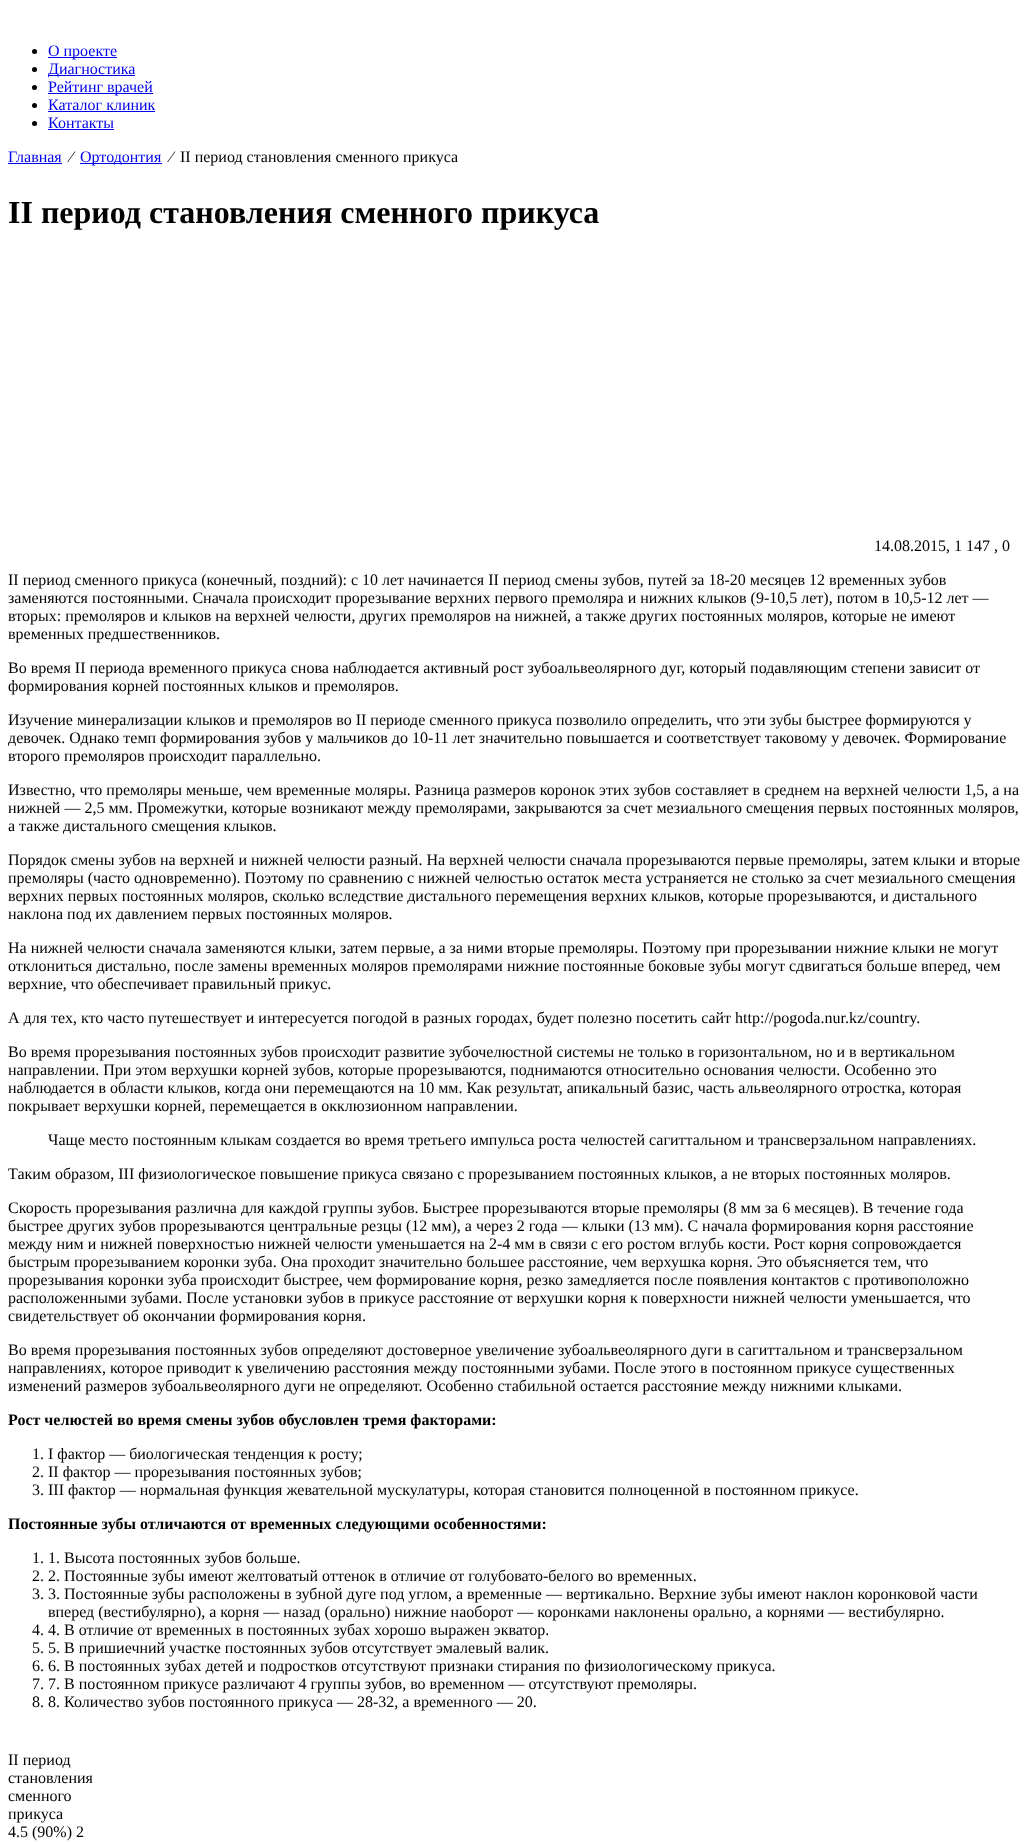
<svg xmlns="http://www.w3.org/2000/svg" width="1028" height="1844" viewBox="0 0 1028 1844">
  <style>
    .t1 { font: 16px Liberation Serif; fill: #00e; }
    .t2 { font: 16px Liberation Serif; fill: #000; }
    .t3 { font: bold 32px Liberation Serif; fill: #000; }
    .t4 { font: bold 16px Liberation Serif; fill: #000; }
  </style>
  <rect width="100%" height="100%" fill="#fff"/>
  <circle cx="34.5" cy="51.5" r="2.5" fill="#000"/>
  <rect x="48" y="57" width="69" height="1" fill="#00e"/>
  <text x="48" y="56" class="t1">О проекте</text>
  <circle cx="34.5" cy="69.5" r="2.5" fill="#000"/>
  <rect x="48" y="75" width="87" height="1" fill="#00e"/>
  <text x="48" y="74" class="t1">Диагностика</text>
  <circle cx="34.5" cy="87.5" r="2.5" fill="#000"/>
  <rect x="48" y="93" width="105" height="1" fill="#00e"/>
  <text x="48" y="92" class="t1">Рейтинг врачей</text>
  <circle cx="34.5" cy="105.5" r="2.5" fill="#000"/>
  <text x="48" y="110" class="t1">Каталог клиник</text>
  <rect x="48" y="111" width="107" height="1" fill="#00e"/>
  <circle cx="34.5" cy="123.5" r="2.5" fill="#000"/>
  <text x="48" y="128" class="t1">Контакты</text>
  <rect x="48" y="129" width="66" height="1" fill="#00e"/>
  <text x="8" y="162" class="t1">Главная</text>
  <rect x="8" y="163" width="54" height="1" fill="#00e"/>
  <text x="70" y="162" class="t2">⁄</text>
  <rect x="80" y="163" width="82" height="1" fill="#00e"/>
  <text x="80" y="162" class="t1">Ортодонтия</text>
  <text x="170" y="162" class="t2">⁄</text>
  <text x="180" y="162" class="t2">II период становления сменного прикуса</text>
  <text x="8" y="223" class="t3">II период становления сменного прикуса</text>
  <text x="874" y="551" class="t2">14.08.2015, 1 147 , 0</text>
  <text x="8" y="585" class="t2">II период сменного прикуса (конечный, поздний): с 10 лет начинается II период смены зубов, путей за 18-20 месяцев 12 временных зубов</text>
  <text x="8" y="603" class="t2">заменяются постоянными. Сначала происходит прорезывание верхних первого премоляра и нижних клыков (9-10,5 лет), потом в 10,5-12 лет —</text>
  <text x="8" y="621" class="t2">вторых: премоляров и клыков на верхней челюсти, других премоляров на нижней, а также других постоянных моляров, которые не имеют</text>
  <text x="8" y="639" class="t2">временных предшественников.</text>
  <text x="8" y="673" class="t2">Во время II периода временного прикуса снова наблюдается активный рост зубоальвеолярного дуг, который подавляющим степени зависит от</text>
  <text x="8" y="691" class="t2">формирования корней постоянных клыков и премоляров.</text>
  <text x="8" y="725" class="t2">Изучение минерализации клыков и премоляров во II периоде сменного прикуса позволило определить, что эти зубы быстрее формируются у</text>
  <text x="8" y="743" class="t2">девочек. Однако темп формирования зубов у мальчиков до 10-11 лет значительно повышается и соответствует таковому у девочек. Формирование</text>
  <text x="8" y="761" class="t2">второго премоляров происходит параллельно.</text>
  <text x="8" y="795" class="t2">Известно, что премоляры меньше, чем временные моляры. Разница размеров коронок этих зубов составляет в среднем на верхней челюсти 1,5, а на</text>
  <text x="8" y="813" class="t2">нижней — 2,5 мм. Промежутки, которые возникают между премолярами, закрываются за счет мезиального смещения первых постоянных моляров,</text>
  <text x="8" y="831" class="t2">а также дистального смещения клыков.</text>
  <text x="8" y="865" class="t2">Порядок смены зубов на верхней и нижней челюсти разный. На верхней челюсти сначала прорезываются первые премоляры, затем клыки и вторые</text>
  <text x="8" y="883" class="t2">премоляры (часто одновременно). Поэтому по сравнению с нижней челюстью остаток места устраняется не столько за счет мезиального смещения</text>
  <text x="8" y="901" class="t2">верхних первых постоянных моляров, сколько вследствие дистального перемещения верхних клыков, которые прорезываются, и дистального</text>
  <text x="8" y="919" class="t2">наклона под их давлением первых постоянных моляров.</text>
  <text x="8" y="953" class="t2">На нижней челюсти сначала заменяются клыки, затем первые, а за ними вторые премоляры. Поэтому при прорезывании нижние клыки не могут</text>
  <text x="8" y="971" class="t2">отклониться дистально, после замены временных моляров премолярами нижние постоянные боковые зубы могут сдвигаться больше вперед, чем</text>
  <text x="8" y="989" class="t2">верхние, что обеспечивает правильный прикус.</text>
  <text x="8" y="1023" class="t2">А для тех, кто часто путешествует и интересуется погодой в разных городах, будет полезно посетить сайт http://pogoda.nur.kz/country.</text>
  <text x="8" y="1057" class="t2">Во время прорезывания постоянных зубов происходит развитие зубочелюстной системы не только в горизонтальном, но и в вертикальном</text>
  <text x="8" y="1075" class="t2">направлении. При этом верхушки корней зубов, которые прорезываются, поднимаются относительно основания челюсти. Особенно это</text>
  <text x="8" y="1093" class="t2">наблюдается в области клыков, когда они перемещаются на 10 мм. Как результат, апикальный базис, часть альвеолярного отростка, которая</text>
  <text x="8" y="1111" class="t2">покрывает верхушки корней, перемещается в окклюзионном направлении.</text>
  <text x="48" y="1145" class="t2">Чаще место постоянным клыкам создается во время третьего импульса роста челюстей сагиттальном и трансверзальном направлениях.</text>
  <text x="8" y="1179" class="t2">Таким образом, III физиологическое повышение прикуса связано с прорезыванием постоянных клыков, а не вторых постоянных моляров.</text>
  <text x="8" y="1213" class="t2">Скорость прорезывания различна для каждой группы зубов. Быстрее прорезываются вторые премоляры (8 мм за 6 месяцев). В течение года</text>
  <text x="8" y="1231" class="t2">быстрее других зубов прорезываются центральные резцы (12 мм), а через 2 года — клыки (13 мм). С начала формирования корня расстояние</text>
  <text x="8" y="1249" class="t2">между ним и нижней поверхностью нижней челюсти уменьшается на 2-4 мм в связи с его ростом вглубь кости. Рост корня сопровождается</text>
  <text x="8" y="1267" class="t2">быстрым прорезыванием коронки зуба. Она проходит значительно большее расстояние, чем верхушка корня. Это объясняется тем, что</text>
  <text x="8" y="1285" class="t2">прорезывания коронки зуба происходит быстрее, чем формирование корня, резко замедляется после появления контактов с противоположно</text>
  <text x="8" y="1303" class="t2">расположенными зубами. После установки зубов в прикусе расстояние от верхушки корня к поверхности нижней челюсти уменьшается, что</text>
  <text x="8" y="1321" class="t2">свидетельствует об окончании формирования корня.</text>
  <text x="8" y="1355" class="t2">Во время прорезывания постоянных зубов определяют достоверное увеличение зубоальвеолярного дуги в сагиттальном и трансверзальном</text>
  <text x="8" y="1373" class="t2">направлениях, которое приводит к увеличению расстояния между постоянными зубами. После этого в постоянном прикусе существенных</text>
  <text x="8" y="1391" class="t2">изменений размеров зубоальвеолярного дуги не определяют. Особенно стабильной остается расстояние между нижними клыками.</text>
  <text x="8" y="1425" class="t4">Рост челюстей во время смены зубов обусловлен тремя факторами:</text>
  <text x="32" y="1459" class="t2">1. I фактор — биологическая тенденция к росту;</text>
  <text x="32" y="1477" class="t2">2. II фактор — прорезывания постоянных зубов;</text>
  <text x="32" y="1495" class="t2">3. III фактор — нормальная функция жевательной мускулатуры, которая становится полноценной в постоянном прикусе.</text>
  <text x="8" y="1529" class="t4">Постоянные зубы отличаются от временных следующими особенностями:</text>
  <text x="32" y="1563" class="t2">1. 1. Высота постоянных зубов больше.</text>
  <text x="32" y="1581" class="t2">2. 2. Постоянные зубы имеют желтоватый оттенок в отличие от голубовато-белого во временных.</text>
  <text x="32" y="1599" class="t2">3. 3. Постоянные зубы расположены в зубной дуге под углом, а временные — вертикально. Верхние зубы имеют наклон коронковой части</text>
  <text x="48" y="1617" class="t2">вперед (вестибулярно), а корня — назад (орально) нижние наоборот — коронками наклонены орально, а корнями — вестибулярно.</text>
  <text x="32" y="1635" class="t2">4. 4. В отличие от временных в постоянных зубах хорошо выражен экватор.</text>
  <text x="32" y="1653" class="t2">5. 5. В пришиечний участке постоянных зубов отсутствует эмалевый валик.</text>
  <text x="32" y="1671" class="t2">6. 6. В постоянных зубах детей и подростков отсутствуют признаки стирания по физиологическому прикуса.</text>
  <text x="32" y="1689" class="t2">7. 7. В постоянном прикусе различают 4 группы зубов, во временном — отсутствуют премоляры.</text>
  <text x="32" y="1707" class="t2">8. 8. Количество зубов постоянного прикуса — 28-32, а временного — 20.</text>
  <text x="8" y="1765" class="t2">II период</text>
  <text x="8" y="1783" class="t2">становления</text>
  <text x="8" y="1801" class="t2">сменного</text>
  <text x="8" y="1819" class="t2">прикуса</text>
  <text x="8" y="1837" class="t2">4.5 (90%) 2</text>
</svg>
